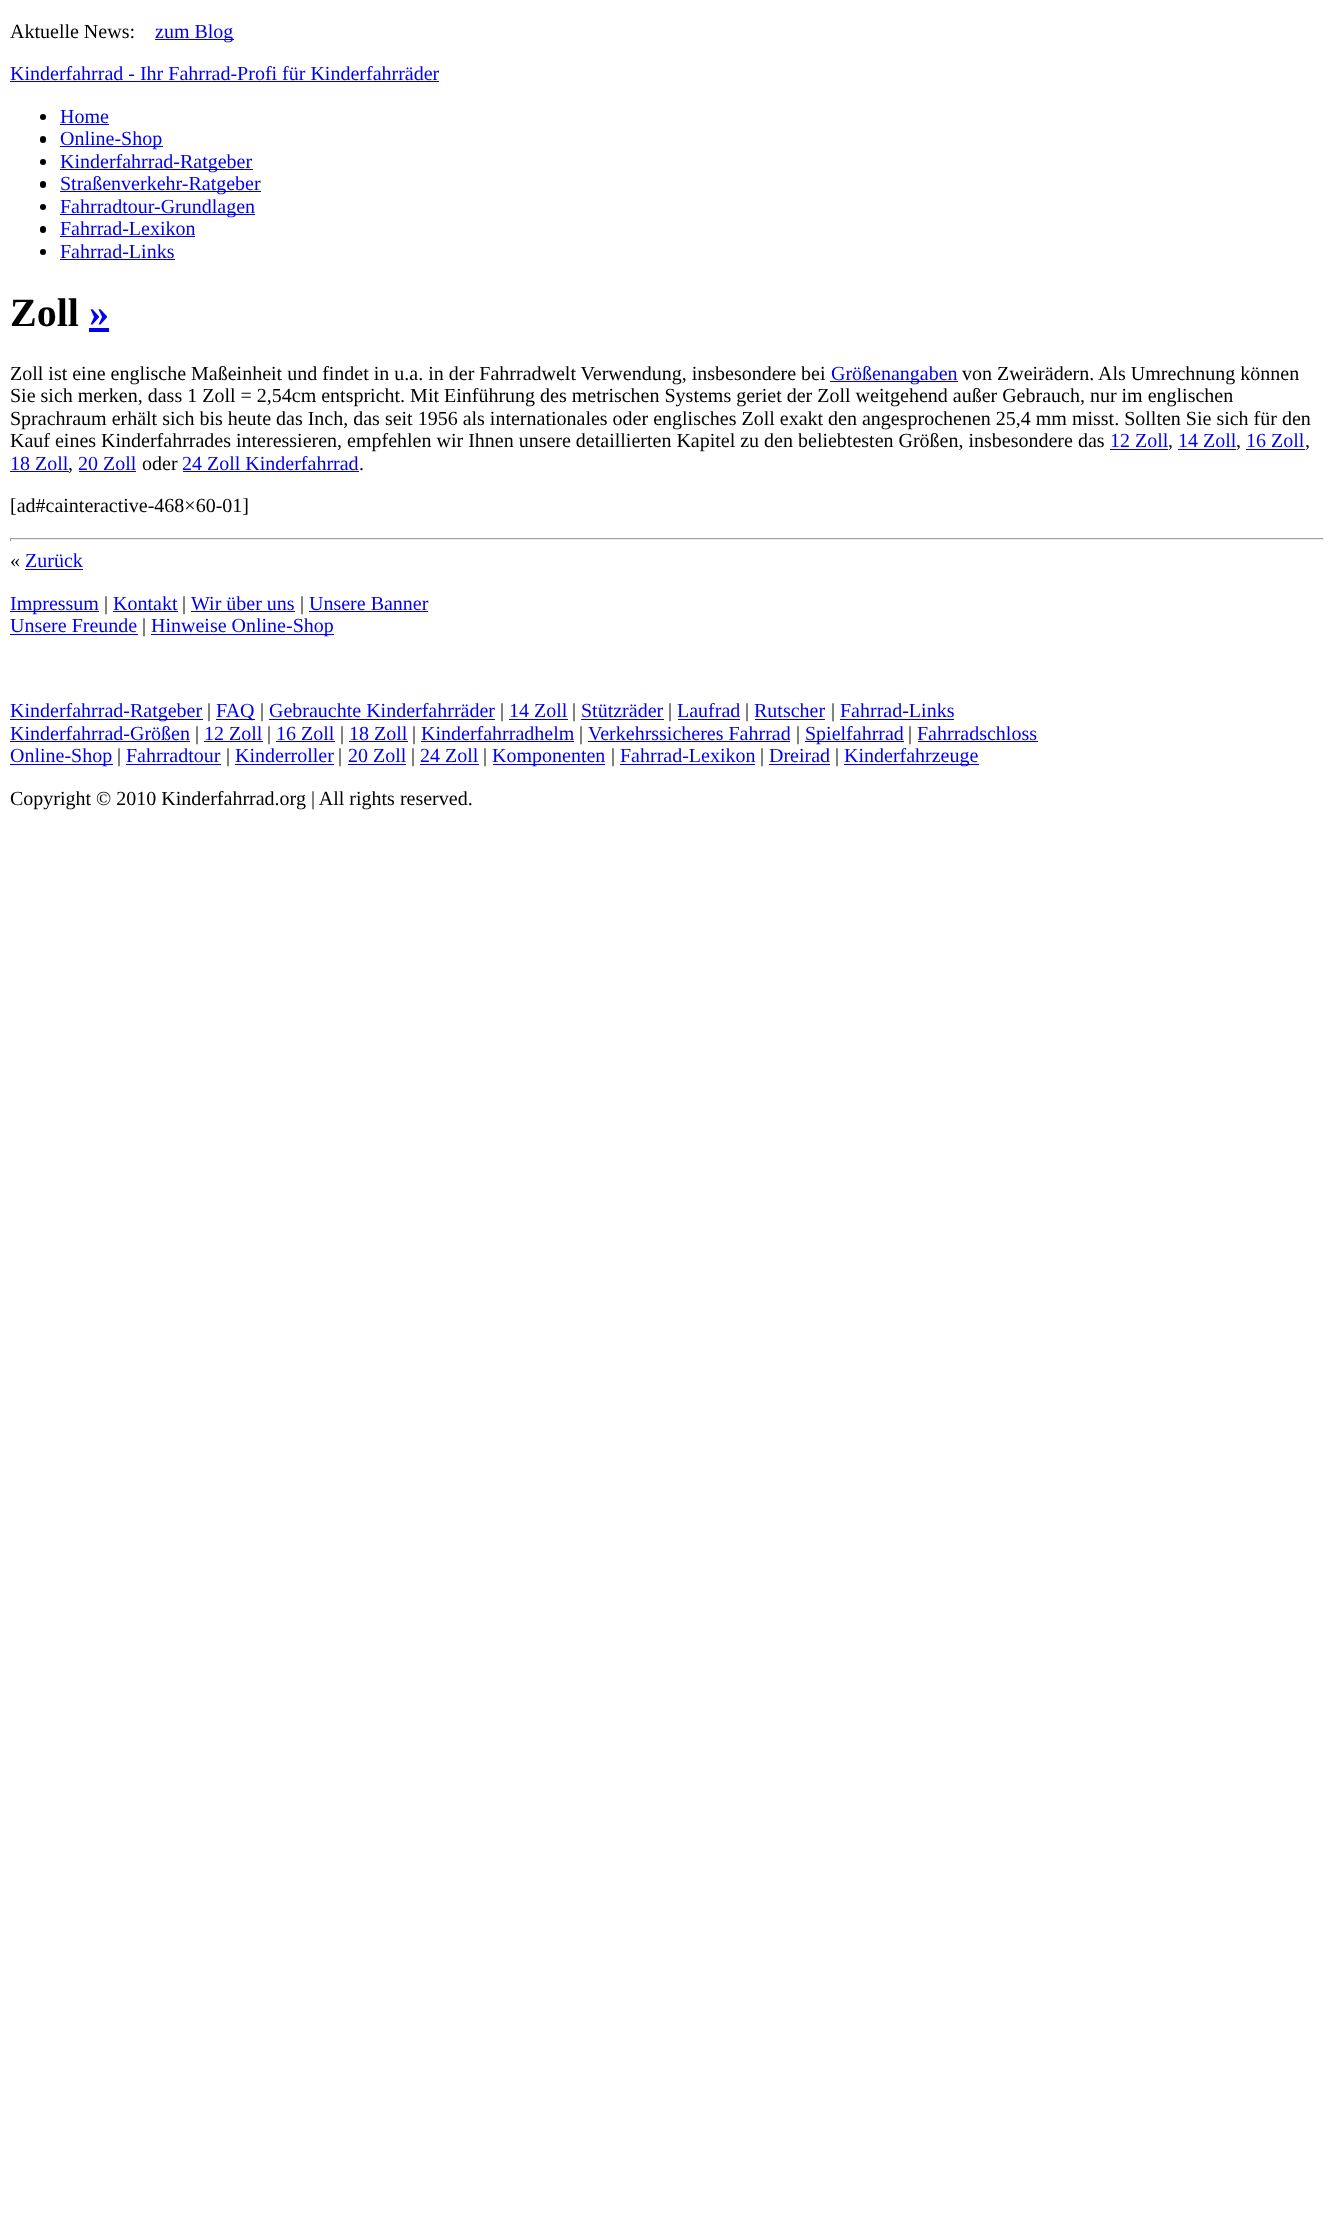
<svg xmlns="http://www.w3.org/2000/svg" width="1333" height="2222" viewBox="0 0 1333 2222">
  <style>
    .t1 { font: 20px Liberation Serif; fill: #000; }
    .t2 { font: 20px Liberation Serif; fill: #00e; }
    .t3 { font: bold 40px Liberation Serif; fill: #000; }
    .t4 { font: bold 40px Liberation Serif; fill: #00e; }
  </style>
  <rect width="100%" height="100%" fill="#fff"/>
  <text x="10" y="38" class="t1">Aktuelle News:</text>
  <rect x="155" y="39" width="79" height="1" fill="#00e"/>
  <text x="155" y="38" class="t2">zum Blog</text>
  <text x="10" y="80" class="t2">Kinderfahrrad - Ihr Fahrrad-Profi für Kinderfahrräder</text>
  <rect x="10" y="81" width="429" height="1" fill="#00e"/>
  <circle cx="43" cy="117" r="3" fill="#000"/>
  <text x="60" y="123" class="t2">Home</text>
  <rect x="60" y="124" width="49" height="1" fill="#00e"/>
  <rect x="40" y="136" width="6" height="7" rx="3" fill="#000"/>
  <rect x="60" y="146" width="103" height="1" fill="#00e"/>
  <text x="60" y="145" class="t2">Online-Shop</text>
  <circle cx="43" cy="162" r="3" fill="#000"/>
  <rect x="60" y="169" width="193" height="1" fill="#00e"/>
  <text x="60" y="168" class="t2">Kinderfahrrad-Ratgeber</text>
  <rect x="40" y="181" width="6" height="7" rx="3" fill="#000"/>
  <rect x="60" y="191" width="201" height="1" fill="#00e"/>
  <text x="60" y="190" class="t2">Straßenverkehr-Ratgeber</text>
  <circle cx="43" cy="207" r="3" fill="#000"/>
  <rect x="60" y="214" width="195" height="1" fill="#00e"/>
  <text x="60" y="213" class="t2">Fahrradtour-Grundlagen</text>
  <rect x="40" y="226" width="6" height="7" rx="3" fill="#000"/>
  <text x="60" y="235" class="t2">Fahrrad-Lexikon</text>
  <rect x="60" y="236" width="135" height="1" fill="#00e"/>
  <circle cx="43" cy="252" r="3" fill="#000"/>
  <text x="60" y="258" class="t2">Fahrrad-Links</text>
  <rect x="60" y="259" width="115" height="1" fill="#00e"/>
  <text x="10" y="326" class="t3">Zoll</text>
  <text x="89" y="326" class="t4">»</text>
  <rect x="89" y="328" width="20" height="4" fill="#00e"/>
  <text x="10" y="380" class="t1">Zoll ist eine englische Maßeinheit und findet in u.a. in der Fahrradwelt Verwendung, insbesondere bei</text>
  <rect x="830" y="381" width="128" height="1" fill="#00e"/>
  <text x="831" y="380" class="t2">Größenangaben</text>
  <text x="962" y="380" class="t1">von Zweirädern. Als Umrechnung können</text>
  <text x="10" y="402" class="t1">Sie sich merken, dass 1 Zoll = 2,54cm entspricht. Mit Einführung des metrischen Systems geriet der Zoll weitgehend außer Gebrauch, nur im englischen</text>
  <text x="10" y="425" class="t1">Sprachraum erhält sich bis heute das Inch, das seit 1956 als internationales oder englisches Zoll exakt den angesprochenen 25,4 mm misst. Sollten Sie sich für den</text>
  <text x="10" y="447" class="t1">Kauf eines Kinderfahrrades interessieren, empfehlen wir Ihnen unsere detaillierten Kapitel zu den beliebtesten Größen, insbesondere das</text>
  <text x="1110" y="447" class="t2">12 Zoll</text>
  <rect x="1110" y="449" width="58" height="1" fill="#00e"/>
  <text x="1168" y="447" class="t1">,</text>
  <text x="1178" y="447" class="t2">14 Zoll</text>
  <rect x="1178" y="449" width="58" height="1" fill="#00e"/>
  <text x="1236" y="447" class="t1">,</text>
  <text x="1246" y="447" class="t2">16 Zoll</text>
  <rect x="1246" y="449" width="59" height="1" fill="#00e"/>
  <text x="1305" y="447" class="t1">,</text>
  <text x="10" y="470" class="t2">18 Zoll</text>
  <rect x="10" y="471" width="59" height="1" fill="#00e"/>
  <text x="68" y="470" class="t1">,</text>
  <text x="78" y="470" class="t2">20 Zoll</text>
  <rect x="79" y="471" width="57" height="1" fill="#00e"/>
  <text x="142" y="470" class="t1">oder</text>
  <text x="182" y="470" class="t2">24 Zoll Kinderfahrrad</text>
  <rect x="183" y="471" width="176" height="1" fill="#00e"/>
  <text x="359" y="470" class="t1">.</text>
  <text x="10" y="512" class="t1">[ad#cainteractive-468×60-01]</text>
  <rect x="10" y="538" width="1314" height="1" fill="#9f9f9f"/>
  <rect x="1323" y="538" width="1" height="3" fill="#eee"/>
  <rect x="10" y="539" width="1314" height="1" fill="#eee"/>
  <rect x="10" y="538" width="1" height="3" fill="#9f9f9f"/>
  <text x="10" y="567" class="t1">«</text>
  <text x="25" y="567" class="t2">Zurück</text>
  <rect x="25" y="569" width="58" height="1" fill="#00e"/>
  <rect x="10" y="611" width="89" height="1" fill="#00e"/>
  <text x="10" y="610" class="t2">Impressum</text>
  <text x="104" y="610" class="t1">|</text>
  <text x="113" y="610" class="t2">Kontakt</text>
  <rect x="113" y="611" width="65" height="1" fill="#00e"/>
  <text x="182" y="610" class="t1">|</text>
  <text x="191" y="610" class="t2">Wir über uns</text>
  <rect x="191" y="611" width="104" height="1" fill="#00e"/>
  <text x="300" y="610" class="t1">|</text>
  <text x="309" y="610" class="t2">Unsere Banner</text>
  <rect x="309" y="611" width="119" height="1" fill="#00e"/>
  <text x="10" y="632" class="t2">Unsere Freunde</text>
  <rect x="10" y="634" width="128" height="1" fill="#00e"/>
  <text x="142" y="632" class="t1">|</text>
  <rect x="151" y="634" width="183" height="1" fill="#00e"/>
  <text x="151" y="632" class="t2">Hinweise Online-Shop</text>
  <rect x="10" y="719" width="193" height="1" fill="#00e"/>
  <text x="10" y="717" class="t2">Kinderfahrrad-Ratgeber</text>
  <text x="207" y="717" class="t1">|</text>
  <rect x="216" y="719" width="39" height="1" fill="#00e"/>
  <text x="216" y="717" class="t2">FAQ</text>
  <text x="260" y="717" class="t1">|</text>
  <text x="269" y="717" class="t2">Gebrauchte Kinderfahrräder</text>
  <rect x="269" y="719" width="226" height="1" fill="#00e"/>
  <text x="500" y="717" class="t1">|</text>
  <text x="509" y="717" class="t2">14 Zoll</text>
  <rect x="509" y="719" width="59" height="1" fill="#00e"/>
  <text x="572" y="717" class="t1">|</text>
  <text x="581" y="717" class="t2">Stützräder</text>
  <rect x="581" y="719" width="83" height="1" fill="#00e"/>
  <text x="668" y="717" class="t1">|</text>
  <text x="677" y="717" class="t2">Laufrad</text>
  <rect x="678" y="719" width="62" height="1" fill="#00e"/>
  <text x="745" y="717" class="t1">|</text>
  <text x="754" y="717" class="t2">Rutscher</text>
  <rect x="755" y="719" width="70" height="1" fill="#00e"/>
  <text x="831" y="717" class="t1">|</text>
  <text x="840" y="717" class="t2">Fahrrad-Links</text>
  <rect x="840" y="719" width="114" height="1" fill="#00e"/>
  <text x="10" y="740" class="t2">Kinderfahrrad-Größen</text>
  <rect x="10" y="741" width="180" height="1" fill="#00e"/>
  <text x="195" y="740" class="t1">|</text>
  <text x="204" y="740" class="t2">12 Zoll</text>
  <rect x="204" y="741" width="59" height="1" fill="#00e"/>
  <text x="267" y="740" class="t1">|</text>
  <text x="276" y="740" class="t2">16 Zoll</text>
  <rect x="276" y="741" width="59" height="1" fill="#00e"/>
  <text x="340" y="740" class="t1">|</text>
  <text x="349" y="740" class="t2">18 Zoll</text>
  <rect x="349" y="741" width="59" height="1" fill="#00e"/>
  <text x="412" y="740" class="t1">|</text>
  <text x="421" y="740" class="t2">Kinderfahrradhelm</text>
  <rect x="421" y="741" width="153" height="1" fill="#00e"/>
  <text x="579" y="740" class="t1">|</text>
  <text x="588" y="740" class="t2">Verkehrssicheres Fahrrad</text>
  <rect x="588" y="741" width="202" height="1" fill="#00e"/>
  <text x="796" y="740" class="t1">|</text>
  <rect x="805" y="741" width="99" height="1" fill="#00e"/>
  <text x="805" y="740" class="t2">Spielfahrrad</text>
  <text x="908" y="740" class="t1">|</text>
  <text x="917" y="740" class="t2">Fahrradschloss</text>
  <rect x="918" y="741" width="120" height="1" fill="#00e"/>
  <rect x="10" y="764" width="103" height="1" fill="#00e"/>
  <text x="10" y="762" class="t2">Online-Shop</text>
  <text x="117" y="762" class="t1">|</text>
  <text x="126" y="762" class="t2">Fahrradtour</text>
  <rect x="126" y="764" width="95" height="1" fill="#00e"/>
  <text x="226" y="762" class="t1">|</text>
  <text x="235" y="762" class="t2">Kinderroller</text>
  <rect x="235" y="764" width="99" height="1" fill="#00e"/>
  <text x="338" y="762" class="t1">|</text>
  <text x="348" y="762" class="t2">20 Zoll</text>
  <rect x="348" y="764" width="58" height="1" fill="#00e"/>
  <text x="411" y="762" class="t1">|</text>
  <text x="420" y="762" class="t2">24 Zoll</text>
  <rect x="420" y="764" width="59" height="1" fill="#00e"/>
  <text x="483" y="762" class="t1">|</text>
  <rect x="493" y="764" width="112" height="1" fill="#00e"/>
  <text x="492" y="762" class="t2">Komponenten</text>
  <text x="611" y="762" class="t1">|</text>
  <text x="620" y="762" class="t2">Fahrrad-Lexikon</text>
  <rect x="620" y="764" width="135" height="1" fill="#00e"/>
  <text x="760" y="762" class="t1">|</text>
  <text x="769" y="762" class="t2">Dreirad</text>
  <rect x="769" y="764" width="61" height="1" fill="#00e"/>
  <text x="835" y="762" class="t1">|</text>
  <rect x="844" y="764" width="135" height="1" fill="#00e"/>
  <text x="844" y="762" class="t2">Kinderfahrzeuge</text>
  <text x="10" y="805" class="t1">Copyright © 2010 Kinderfahrrad.org | All rights reserved.</text>
</svg>
